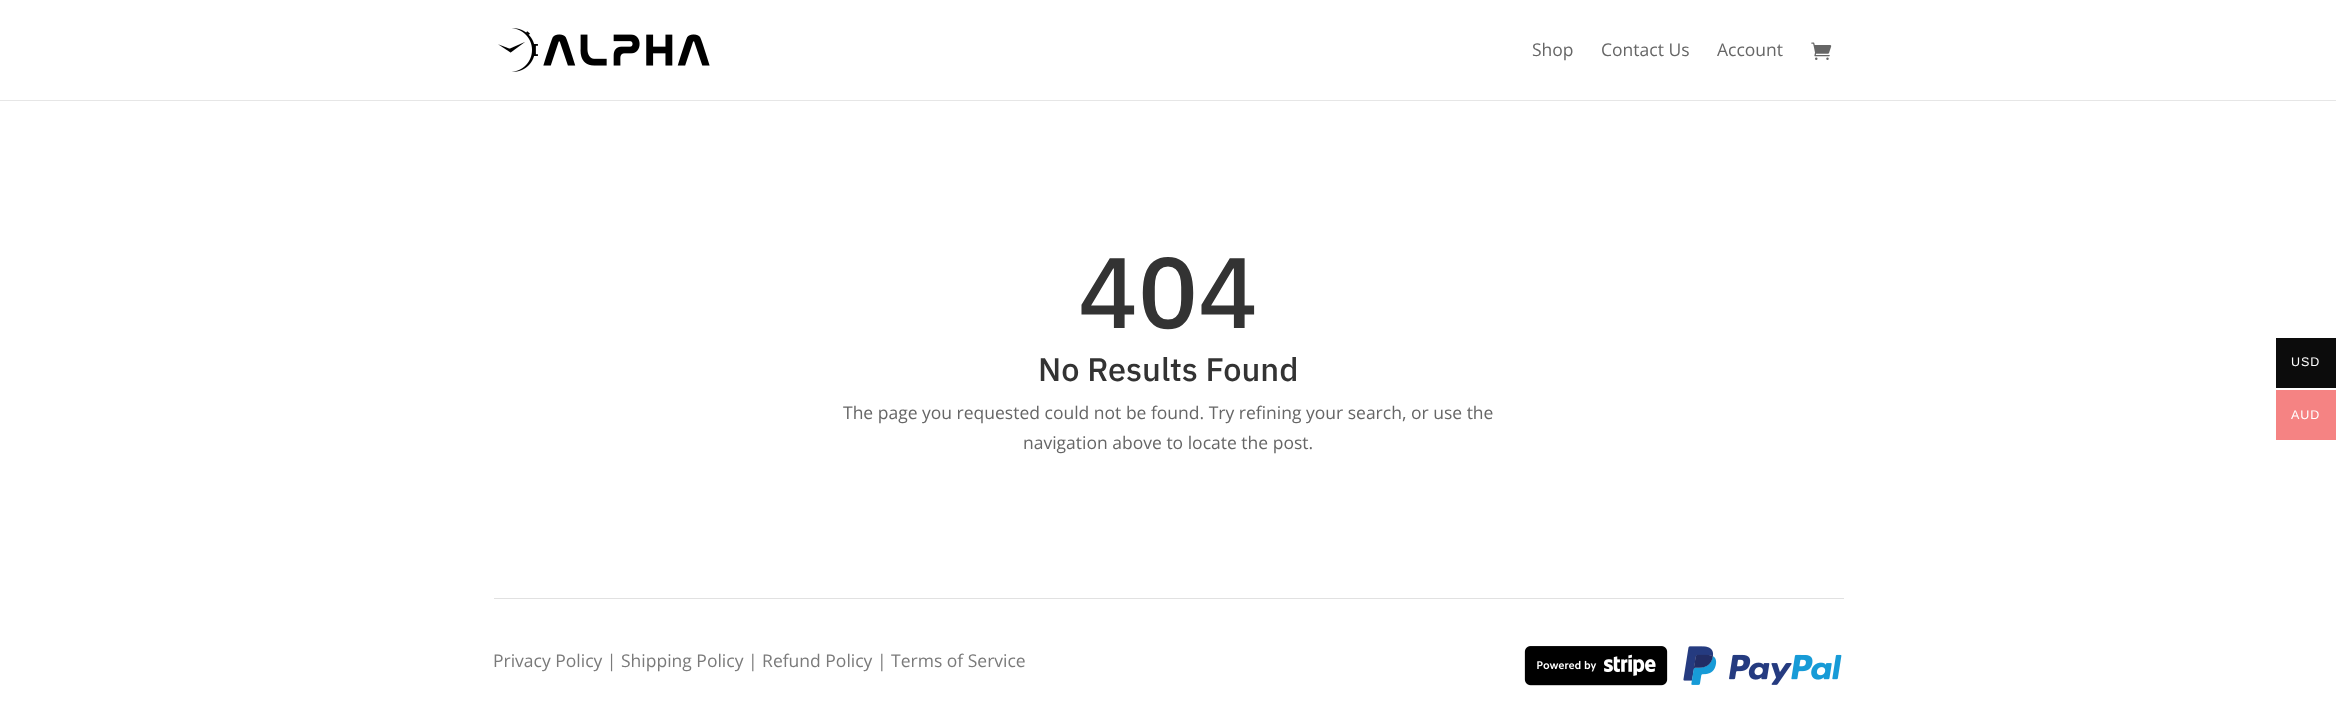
<svg xmlns="http://www.w3.org/2000/svg" width="2336" height="712" viewBox="0 0 2336 712">
  <style>
    .t1 { font: 17.5px Open Sans; fill: #666; }
    .t2 { font: 500 100px IBM Plex Sans; fill: #333; }
    .t3 { font: 500 32.5px IBM Plex Sans; fill: #333; }
    .t4 { font: 17.5px Open Sans; fill: #7a7a7a; }
    .t5 { font: 12.5px Liberation Sans; letter-spacing: 1px; fill: #fff; }
  </style>
  <rect width="100%" height="100%" fill="#fff"/>
  <rect x="0" y="100" width="2336" height="1" fill="#e6e6e6"/>
  <image x="498" y="28" width="212" height="44" href="images/1.png"/>
  <text x="1532" y="56" class="t1">Shop</text>
  <text x="1601" y="56" class="t1">Contact Us</text>
  <text x="1717" y="56" class="t1">Account</text>
  <image x="1811" y="42" width="21" height="18" href="images/2.png"/>
  <text x="1078" y="328" class="t2">404</text>
  <text x="1038" y="381" class="t3">No Results Found</text>
  <text x="843" y="419" class="t1">The page you requested could not be found. Try refining your search, or use the</text>
  <text x="1023" y="449" class="t1">navigation above to locate the post.</text>
  <rect x="494" y="598" width="1350" height="1" fill="#e1e1e1"/>
  <text x="493" y="667" class="t4">Privacy Policy | Shipping Policy | Refund Policy | Terms of Service</text>
  <image x="1524" y="646" width="318" height="40" href="images/3.png"/>
  <rect x="2276" y="338" width="60" height="50" fill="#0c0c0c"/>
  <text x="2291" y="366" class="t5">USD</text>
  <rect x="2276" y="390" width="60" height="50" fill="#f58383"/>
  <text x="2291" y="419" class="t5">AUD</text>
</svg>
